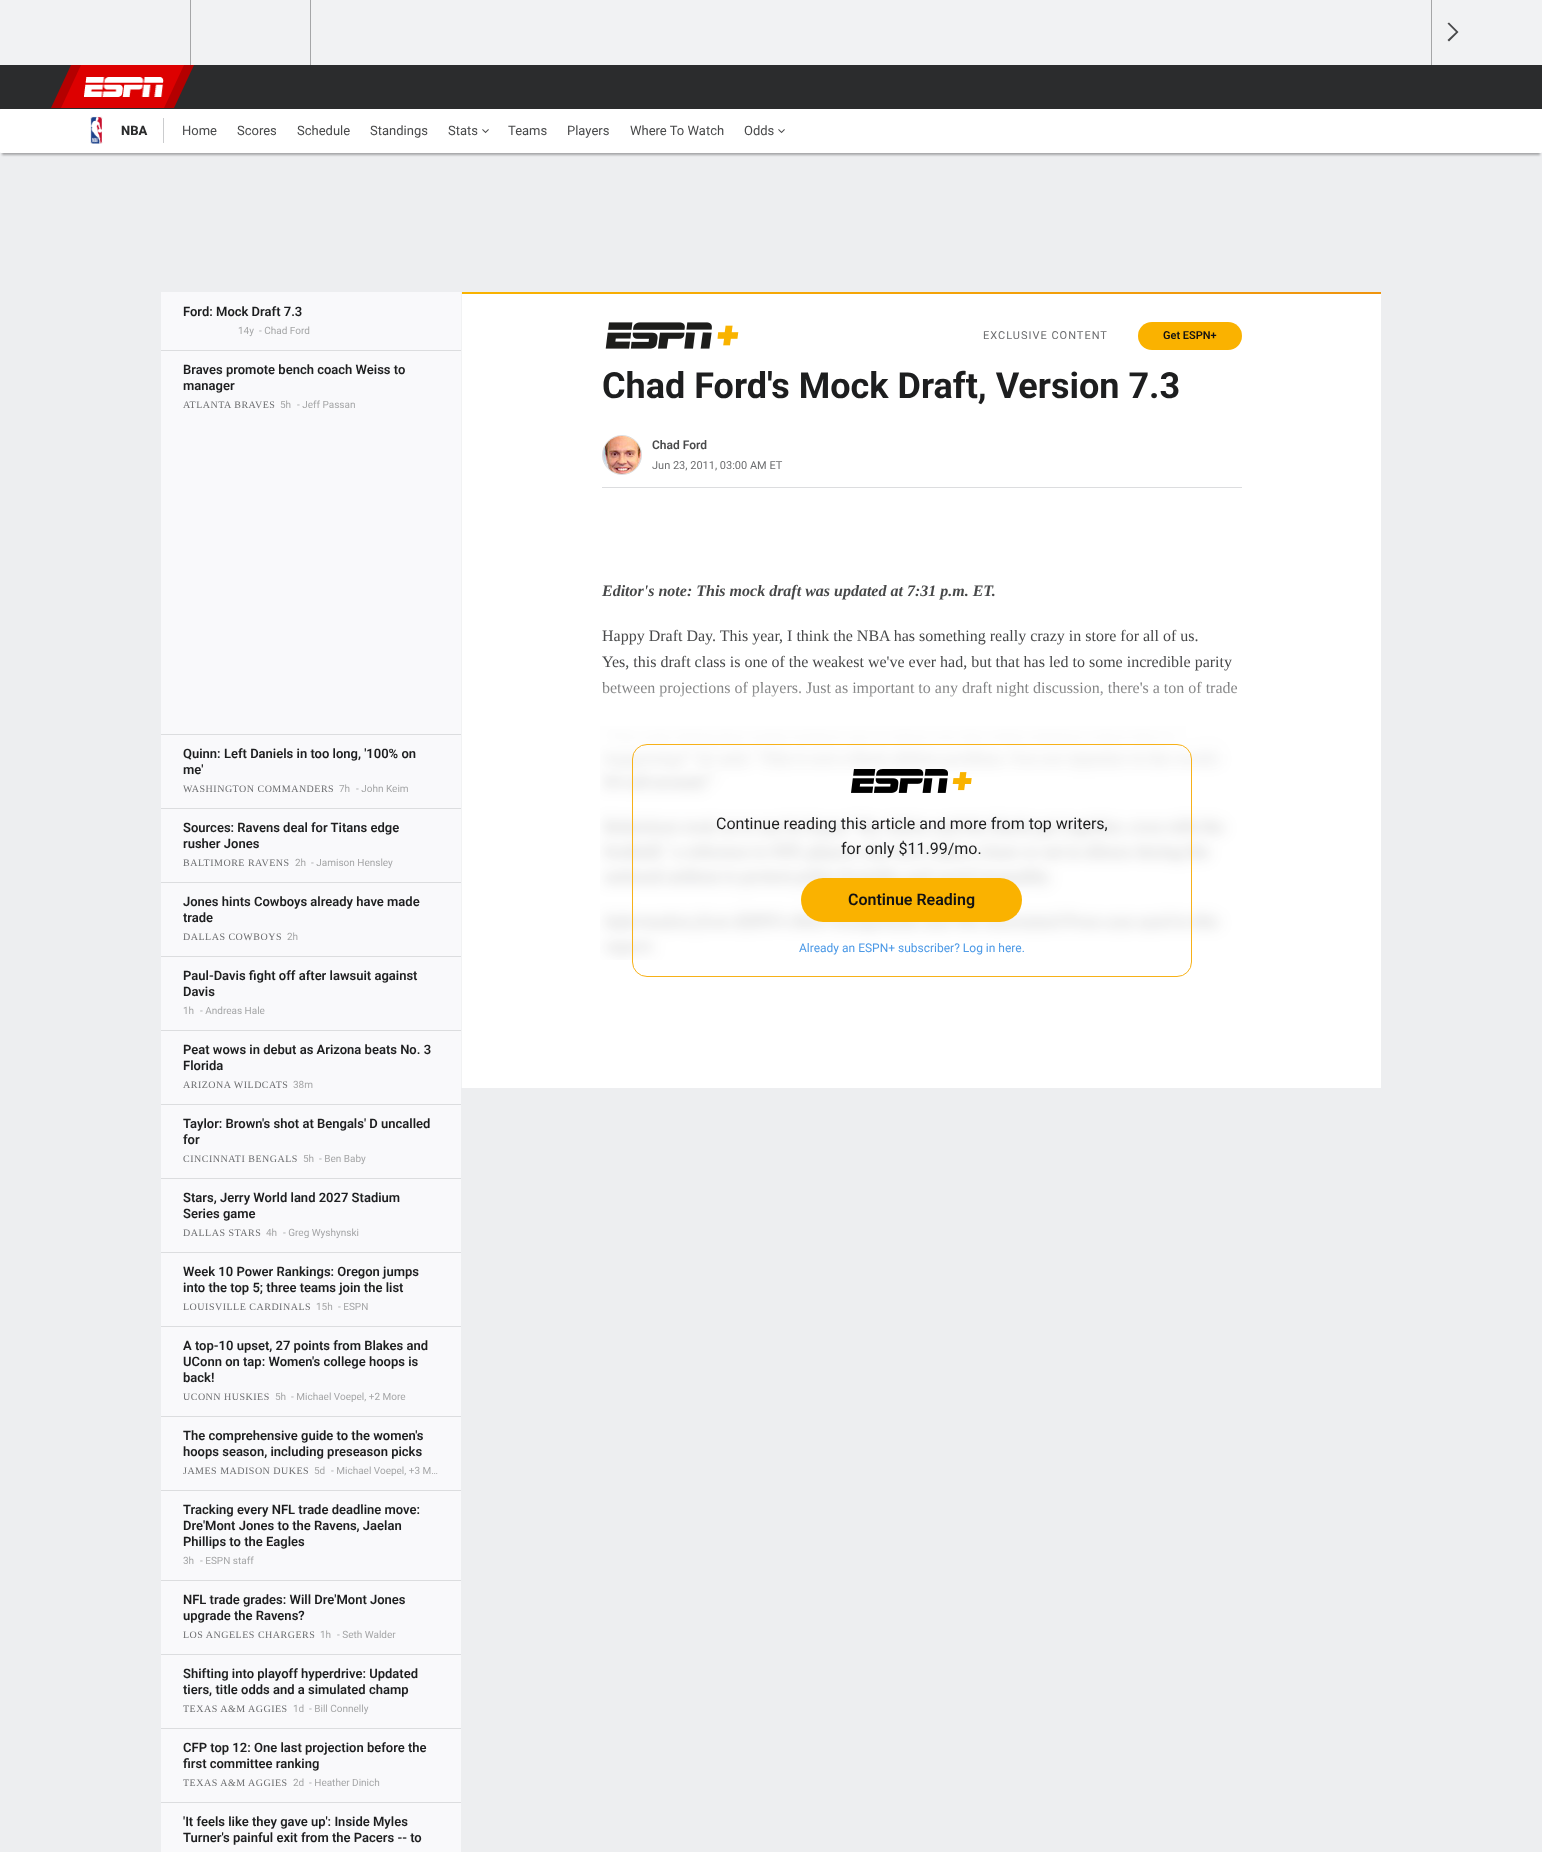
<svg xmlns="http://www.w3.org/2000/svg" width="1542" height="1852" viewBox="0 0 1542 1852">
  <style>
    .t1 { font: 800 13px Roboto; fill: #2b2c2d; }
    .t2 { font: 13px Roboto; fill: #48494a; }
    .t3 { font: 600 13px Roboto; fill: #1d1e1f; }
    .t4 { font: 10px Roboto; fill: #a5a6a7; }
    .t5 { font: 10px Liberation Serif; letter-spacing: 0.5px; fill: #6c6d6f; }
    .t6 { font: 11px Roboto; letter-spacing: 1px; fill: #6c6d6f; }
    .t7 { font: 600 11px Roboto; fill: #121213; }
    .t8 { font: bold 36px Roboto; fill: #1d1e1f; }
    .t9 { font: 600 12px Roboto; fill: #48494a; }
    .t10 { font: 11px Roboto; fill: #6c6d6f; }
    .t11 { font: italic bold 16px Liberation Serif; fill: #48494a; }
    .t12 { font: 16px Liberation Serif; fill: #48494a; }
    .t13 { font: 16px Roboto; fill: #1d1e1f; }
    .t14 { font: 600 16px Roboto; fill: #121213; }
    .t15 { font: 12px Roboto; fill: #4c99e6; }
  </style>
  <defs>
    <linearGradient id="g1" gradientUnits="userSpaceOnUse" x1="462" y1="293" x2="1381" y2="293"><stop offset="0" stop-color="#f9b300"/><stop offset="1" stop-color="#ef940e"/></linearGradient>
  </defs>
  <rect width="100%" height="100%" fill="#edeef0"/>
  <rect x="0" y="0" width="1542" height="65" fill="#f1f2f3"/>
  <rect x="190" y="0" width="1" height="65" fill="#a5a6a7"/>
  <rect x="310" y="0" width="1" height="65" fill="#a5a6a7"/>
  <rect x="1431" y="0" width="1" height="65" fill="#a5a6a7"/>
  <path d="M1449 22.5L1447.5 23.5L1456 32L1447.5 40L1449 41.5L1458.5 32Z" fill="#48494a"/>
  <rect x="0" y="65" width="1542" height="44" fill="#2b2c2d"/>
  <path d="M71 65H194L174 108H51Z" fill="#b40000"/>
  <path d="M81 65H184L164 108H61Z" fill="#d00"/>
  <image x="84" y="77" width="80" height="20" href="images/1.png"/>
  <rect x="2" y="115" width="1538" height="40" fill="#0000004d" filter="blur(1px)"/>
  <rect x="0" y="109" width="1542" height="44" rx="1" fill="#fff"/>
  <image x="90" y="116" width="13" height="28" href="images/2.png"/>
  <text x="121" y="135" class="t1">NBA</text>
  <rect x="163" y="118" width="1" height="25" fill="#cbccce"/>
  <text x="182" y="135" class="t2">Home</text>
  <text x="237" y="135" class="t2">Scores</text>
  <text x="297" y="135" class="t2">Schedule</text>
  <text x="370" y="135" class="t2">Standings</text>
  <text x="448" y="135" class="t2">Stats</text>
  <image x="482" y="129" width="7" height="5" href="images/3.png"/>
  <text x="508" y="135" class="t2">Teams</text>
  <text x="567" y="135" class="t2">Players</text>
  <text x="630" y="135" class="t2">Where To Watch</text>
  <text x="744" y="135" class="t2">Odds</text>
  <image x="778" y="129" width="7" height="5" href="images/3.png"/>
  <rect x="161" y="292" width="300" height="1560" fill="#f9f9fb"/>
  <text x="183" y="316" class="t3">Ford: Mock Draft 7.3</text>
  <text x="238" y="334" class="t4">14y</text>
  <text x="259" y="334" class="t4">- Chad Ford</text>
  <rect x="161" y="350" width="300" height="1" fill="#dcdddf"/>
  <text x="183" y="374" class="t3">Braves promote bench coach Weiss to</text>
  <text x="183" y="390" class="t3">manager</text>
  <text x="183" y="408" class="t5">ATLANTA BRAVES</text>
  <text x="280" y="408" class="t4">5h</text>
  <text x="297" y="408" class="t4">- Jeff Passan</text>
  <rect x="161" y="734" width="300" height="1" fill="#dcdddf"/>
  <text x="183" y="758" class="t3">Quinn: Left Daniels in too long, '100% on</text>
  <text x="183" y="774" class="t3">me'</text>
  <text x="183" y="792" class="t5">WASHINGTON COMMANDERS</text>
  <text x="339" y="792" class="t4">7h</text>
  <text x="356" y="792" class="t4">- John Keim</text>
  <rect x="161" y="808" width="300" height="1" fill="#dcdddf"/>
  <text x="183" y="832" class="t3">Sources: Ravens deal for Titans edge</text>
  <text x="183" y="848" class="t3">rusher Jones</text>
  <text x="183" y="866" class="t5">BALTIMORE RAVENS</text>
  <text x="295" y="866" class="t4">2h</text>
  <text x="311" y="866" class="t4">- Jamison Hensley</text>
  <rect x="161" y="882" width="300" height="1" fill="#dcdddf"/>
  <text x="183" y="906" class="t3">Jones hints Cowboys already have made</text>
  <text x="183" y="922" class="t3">trade</text>
  <text x="183" y="940" class="t5">DALLAS COWBOYS</text>
  <text x="287" y="940" class="t4">2h</text>
  <rect x="161" y="956" width="300" height="1" fill="#dcdddf"/>
  <text x="183" y="980" class="t3">Paul-Davis fight off after lawsuit against</text>
  <text x="183" y="996" class="t3">Davis</text>
  <text x="183" y="1014" class="t4">1h</text>
  <text x="200" y="1014" class="t4">- Andreas Hale</text>
  <rect x="161" y="1030" width="300" height="1" fill="#dcdddf"/>
  <text x="183" y="1054" class="t3">Peat wows in debut as Arizona beats No. 3</text>
  <text x="183" y="1070" class="t3">Florida</text>
  <text x="183" y="1088" class="t5">ARIZONA WILDCATS</text>
  <text x="293" y="1088" class="t4">38m</text>
  <rect x="161" y="1104" width="300" height="1" fill="#dcdddf"/>
  <text x="183" y="1128" class="t3">Taylor: Brown's shot at Bengals' D uncalled</text>
  <text x="183" y="1144" class="t3">for</text>
  <text x="183" y="1162" class="t5">CINCINNATI BENGALS</text>
  <text x="303" y="1162" class="t4">5h</text>
  <text x="319" y="1162" class="t4">- Ben Baby</text>
  <rect x="161" y="1178" width="300" height="1" fill="#dcdddf"/>
  <text x="183" y="1202" class="t3">Stars, Jerry World land 2027 Stadium</text>
  <text x="183" y="1218" class="t3">Series game</text>
  <text x="183" y="1236" class="t5">DALLAS STARS</text>
  <text x="266" y="1236" class="t4">4h</text>
  <text x="283" y="1236" class="t4">- Greg Wyshynski</text>
  <rect x="161" y="1252" width="300" height="1" fill="#dcdddf"/>
  <text x="183" y="1276" class="t3">Week 10 Power Rankings: Oregon jumps</text>
  <text x="183" y="1292" class="t3">into the top 5; three teams join the list</text>
  <text x="183" y="1310" class="t5">LOUISVILLE CARDINALS</text>
  <text x="316" y="1310" class="t4">15h</text>
  <text x="338" y="1310" class="t4">- ESPN</text>
  <rect x="161" y="1326" width="300" height="1" fill="#dcdddf"/>
  <text x="183" y="1350" class="t3">A top-10 upset, 27 points from Blakes and</text>
  <text x="183" y="1366" class="t3">UConn on tap: Women's college hoops is</text>
  <text x="183" y="1382" class="t3">back!</text>
  <text x="183" y="1400" class="t5">UCONN HUSKIES</text>
  <text x="275" y="1400" class="t4">5h</text>
  <text x="291" y="1400" class="t4">- Michael Voepel, +2 More</text>
  <rect x="161" y="1416" width="300" height="1" fill="#dcdddf"/>
  <text x="183" y="1440" class="t3">The comprehensive guide to the women's</text>
  <text x="183" y="1456" class="t3">hoops season, including preseason picks</text>
  <text x="183" y="1474" class="t5">JAMES MADISON DUKES</text>
  <text x="314" y="1474" class="t4">5d</text>
  <text x="331" y="1474" class="t4">- Michael Voepel, +3 M…</text>
  <rect x="161" y="1490" width="300" height="1" fill="#dcdddf"/>
  <text x="183" y="1514" class="t3">Tracking every NFL trade deadline move:</text>
  <text x="183" y="1530" class="t3">Dre'Mont Jones to the Ravens, Jaelan</text>
  <text x="183" y="1546" class="t3">Phillips to the Eagles</text>
  <text x="183" y="1564" class="t4">3h</text>
  <text x="200" y="1564" class="t4">- ESPN staff</text>
  <rect x="161" y="1580" width="300" height="1" fill="#dcdddf"/>
  <text x="183" y="1604" class="t3">NFL trade grades: Will Dre'Mont Jones</text>
  <text x="183" y="1620" class="t3">upgrade the Ravens?</text>
  <text x="183" y="1638" class="t5">LOS ANGELES CHARGERS</text>
  <text x="320" y="1638" class="t4">1h</text>
  <text x="337" y="1638" class="t4">- Seth Walder</text>
  <rect x="161" y="1654" width="300" height="1" fill="#dcdddf"/>
  <text x="183" y="1678" class="t3">Shifting into playoff hyperdrive: Updated</text>
  <text x="183" y="1694" class="t3">tiers, title odds and a simulated champ</text>
  <text x="183" y="1712" class="t5">TEXAS A&amp;M AGGIES</text>
  <text x="293" y="1712" class="t4">1d</text>
  <text x="309" y="1712" class="t4">- Bill Connelly</text>
  <rect x="161" y="1728" width="300" height="1" fill="#dcdddf"/>
  <text x="183" y="1752" class="t3">CFP top 12: One last projection before the</text>
  <text x="183" y="1768" class="t3">first committee ranking</text>
  <text x="183" y="1786" class="t5">TEXAS A&amp;M AGGIES</text>
  <text x="293" y="1786" class="t4">2d</text>
  <text x="309" y="1786" class="t4">- Heather Dinich</text>
  <rect x="161" y="1802" width="300" height="1" fill="#dcdddf"/>
  <text x="183" y="1826" class="t3">'It feels like they gave up': Inside Myles</text>
  <text x="183" y="1842" class="t3">Turner's painful exit from the Pacers -- to</text>
  <rect x="461" y="292" width="1" height="796" fill="#f1f2f3"/>
  <rect x="462" y="294" width="919" height="794" fill="#fff"/>
  <rect x="462" y="292" width="919" height="2" fill="url(#g1)"/>
  <image x="605" y="322" width="134" height="27" href="images/4.png"/>
  <text x="983" y="339" class="t6">EXCLUSIVE CONTENT</text>
  <rect x="1138" y="322" width="104" height="28" rx="14" fill="#fab200"/>
  <text x="1163" y="339" class="t7">Get ESPN+</text>
  <text x="602" y="398" class="t8">Chad Ford's Mock Draft, Version 7.3</text>
  <rect x="602" y="487" width="640" height="1" fill="#dcdddf"/>
  <circle cx="622" cy="455" r="19.5" fill="#f1f2f3" stroke="#dcdddf"/>
  <image x="603" y="436" width="38" height="38" href="images/5.png"/>
  <text x="652" y="449" class="t9">Chad Ford</text>
  <text x="652" y="469" class="t10">Jun 23, 2011, 03:00 AM ET</text>
  <text x="602" y="596" class="t11">Editor's note: This mock draft was updated at 7:31 p.m. ET.</text>
  <text x="602" y="641" class="t12">Happy Draft Day. This year, I think the NBA has something really crazy in store for all of us.</text>
  <text x="602" y="667" class="t12">Yes, this draft class is one of the weakest we've ever had, but that has led to some incredible parity</text>
  <text x="602" y="693" class="t12">between projections of players. Just as important to any draft night discussion, there's a ton of trade</text>
  <image x="600" y="681" width="637" height="279" href="images/6.png"/>
  <rect x="632.5" y="744.5" width="559" height="232" rx="14.5" fill="none" stroke="#f7b118"/>
  <image x="851" y="769" width="121" height="24" href="images/7.png"/>
  <text x="716" y="829" class="t13">Continue reading this article and more from top writers,</text>
  <text x="841" y="854" class="t13">for only $11.99/mo.</text>
  <rect x="801" y="878" width="221" height="44" rx="22" fill="#fab200"/>
  <text x="848" y="905" class="t14">Continue Reading</text>
  <text x="799" y="952" class="t15">Already an ESPN+ subscriber? Log in here.</text>
</svg>
